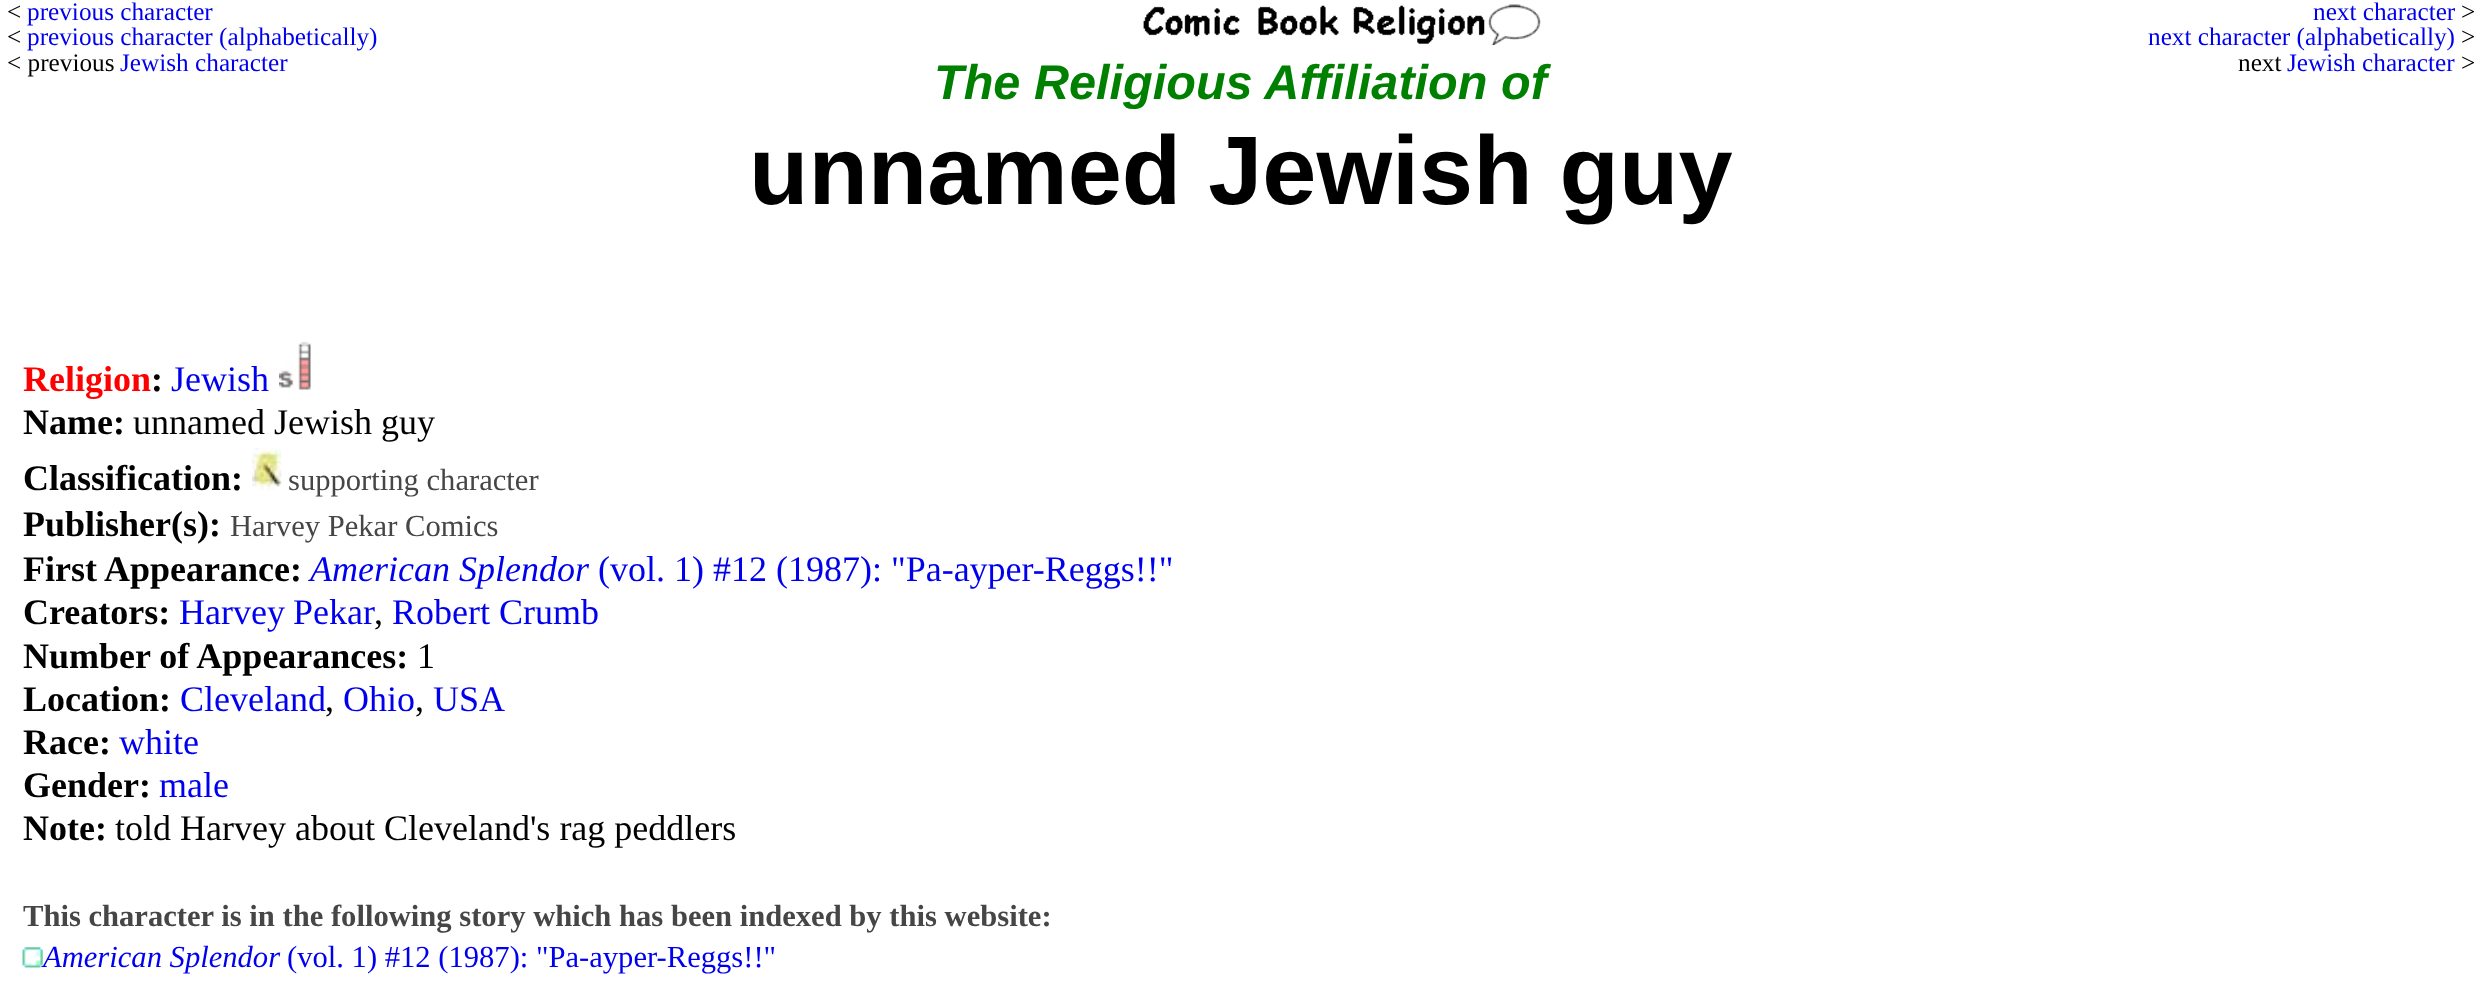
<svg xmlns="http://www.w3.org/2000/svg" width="2480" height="994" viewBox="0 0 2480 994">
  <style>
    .t1 { font: 25.25px Liberation Serif; fill: #000; }
    .t2 { font: 25.25px Liberation Serif; fill: #00e; }
    .t3 { font: italic bold 48.6px Liberation Sans; fill: #008000; }
    .t4 { font: bold 97.25px Liberation Sans; fill: #000; }
    .t5 { font: bold 36px Liberation Serif; fill: #f00; }
    .t6 { font: bold 36px Liberation Serif; fill: #000; }
    .t7 { font: 36px Liberation Serif; fill: #00e; }
    .t8 { font: 36px Liberation Serif; fill: #000; }
    .t9 { font: 30.6px Liberation Serif; fill: #464646; }
    .t10 { font: italic 36px Liberation Serif; fill: #00e; }
    .t11 { font: bold 30.6px Liberation Serif; fill: #464646; }
    .t12 { font: italic 30.6px Liberation Serif; fill: #00e; }
    .t13 { font: 30.6px Liberation Serif; fill: #00e; }
  </style>
  <rect width="100%" height="100%" fill="#fff"/>
  <text x="7" y="20" class="t1">&lt;</text>
  <text x="27" y="20" class="t2">previous character</text>
  <text x="7" y="45" class="t1">&lt;</text>
  <text x="27" y="45" class="t2">previous character (alphabetically)</text>
  <text x="7" y="71" class="t1">&lt; previous</text>
  <text x="120" y="71" class="t2">Jewish character</text>
  <image x="1143" y="4" width="398" height="41" href="images/1.png"/>
  <text x="2313" y="20" class="t2">next character</text>
  <text x="2461" y="20" class="t1">&gt;</text>
  <text x="2148" y="45" class="t2">next character (alphabetically)</text>
  <text x="2461" y="45" class="t1">&gt;</text>
  <text x="2238" y="71" class="t1">next</text>
  <text x="2287" y="71" class="t2">Jewish character</text>
  <text x="2461" y="71" class="t1">&gt;</text>
  <text x="934" y="99" class="t3">The Religious Affiliation of</text>
  <text x="749" y="204" class="t4">unnamed Jewish guy</text>
  <text x="23" y="391" class="t5">Religion</text>
  <text x="151" y="391" class="t6">:</text>
  <text x="171" y="391" class="t7">Jewish</text>
  <image x="279" y="342" width="32" height="48" href="images/2.png"/>
  <text x="23" y="434" class="t6">Name:</text>
  <text x="133" y="434" class="t8">unnamed Jewish guy</text>
  <text x="23" y="490" class="t6">Classification:</text>
  <image x="252" y="448" width="30" height="42" href="images/3.png"/>
  <text x="288" y="490" class="t9">supporting character</text>
  <text x="23" y="536" class="t6">Publisher(s):</text>
  <text x="230" y="536" class="t9">Harvey Pekar Comics</text>
  <text x="23" y="581" class="t6">First Appearance:</text>
  <text x="310" y="581" class="t10">American Splendor</text>
  <text x="598" y="581" class="t7">(vol. 1) #12 (1987): "Pa-ayper-Reggs!!"</text>
  <text x="23" y="624" class="t6">Creators:</text>
  <text x="179" y="624" word-spacing="-1" class="t7">Harvey Pekar</text>
  <text x="374" y="624" class="t8">,</text>
  <text x="392" y="624" class="t7">Robert Crumb</text>
  <text x="23" y="668" class="t6">Number of Appearances:</text>
  <text x="417" y="668" class="t8">1</text>
  <text x="23" y="711" class="t6">Location:</text>
  <text x="180" y="711" class="t7">Cleveland</text>
  <text x="325" y="711" class="t8">,</text>
  <text x="343" y="711" class="t7">Ohio</text>
  <text x="415" y="711" class="t8">,</text>
  <text x="433" y="711" class="t7">USA</text>
  <text x="23" y="754" class="t6">Race:</text>
  <text x="119" y="754" class="t7">white</text>
  <text x="23" y="797" class="t6">Gender:</text>
  <text x="159" y="797" class="t7">male</text>
  <text x="23" y="840" class="t6">Note:</text>
  <text x="115" y="840" class="t8">told Harvey about Cleveland's rag peddlers</text>
  <text x="23" y="926" class="t11">This character is in the following story which has been indexed by this website:</text>
  <image x="22" y="947" width="21" height="21" href="images/4.png"/>
  <text x="43" y="967" class="t12">American Splendor</text>
  <text x="287" y="967" class="t13">(vol. 1) #12 (1987): "Pa-ayper-Reggs!!"</text>
</svg>
